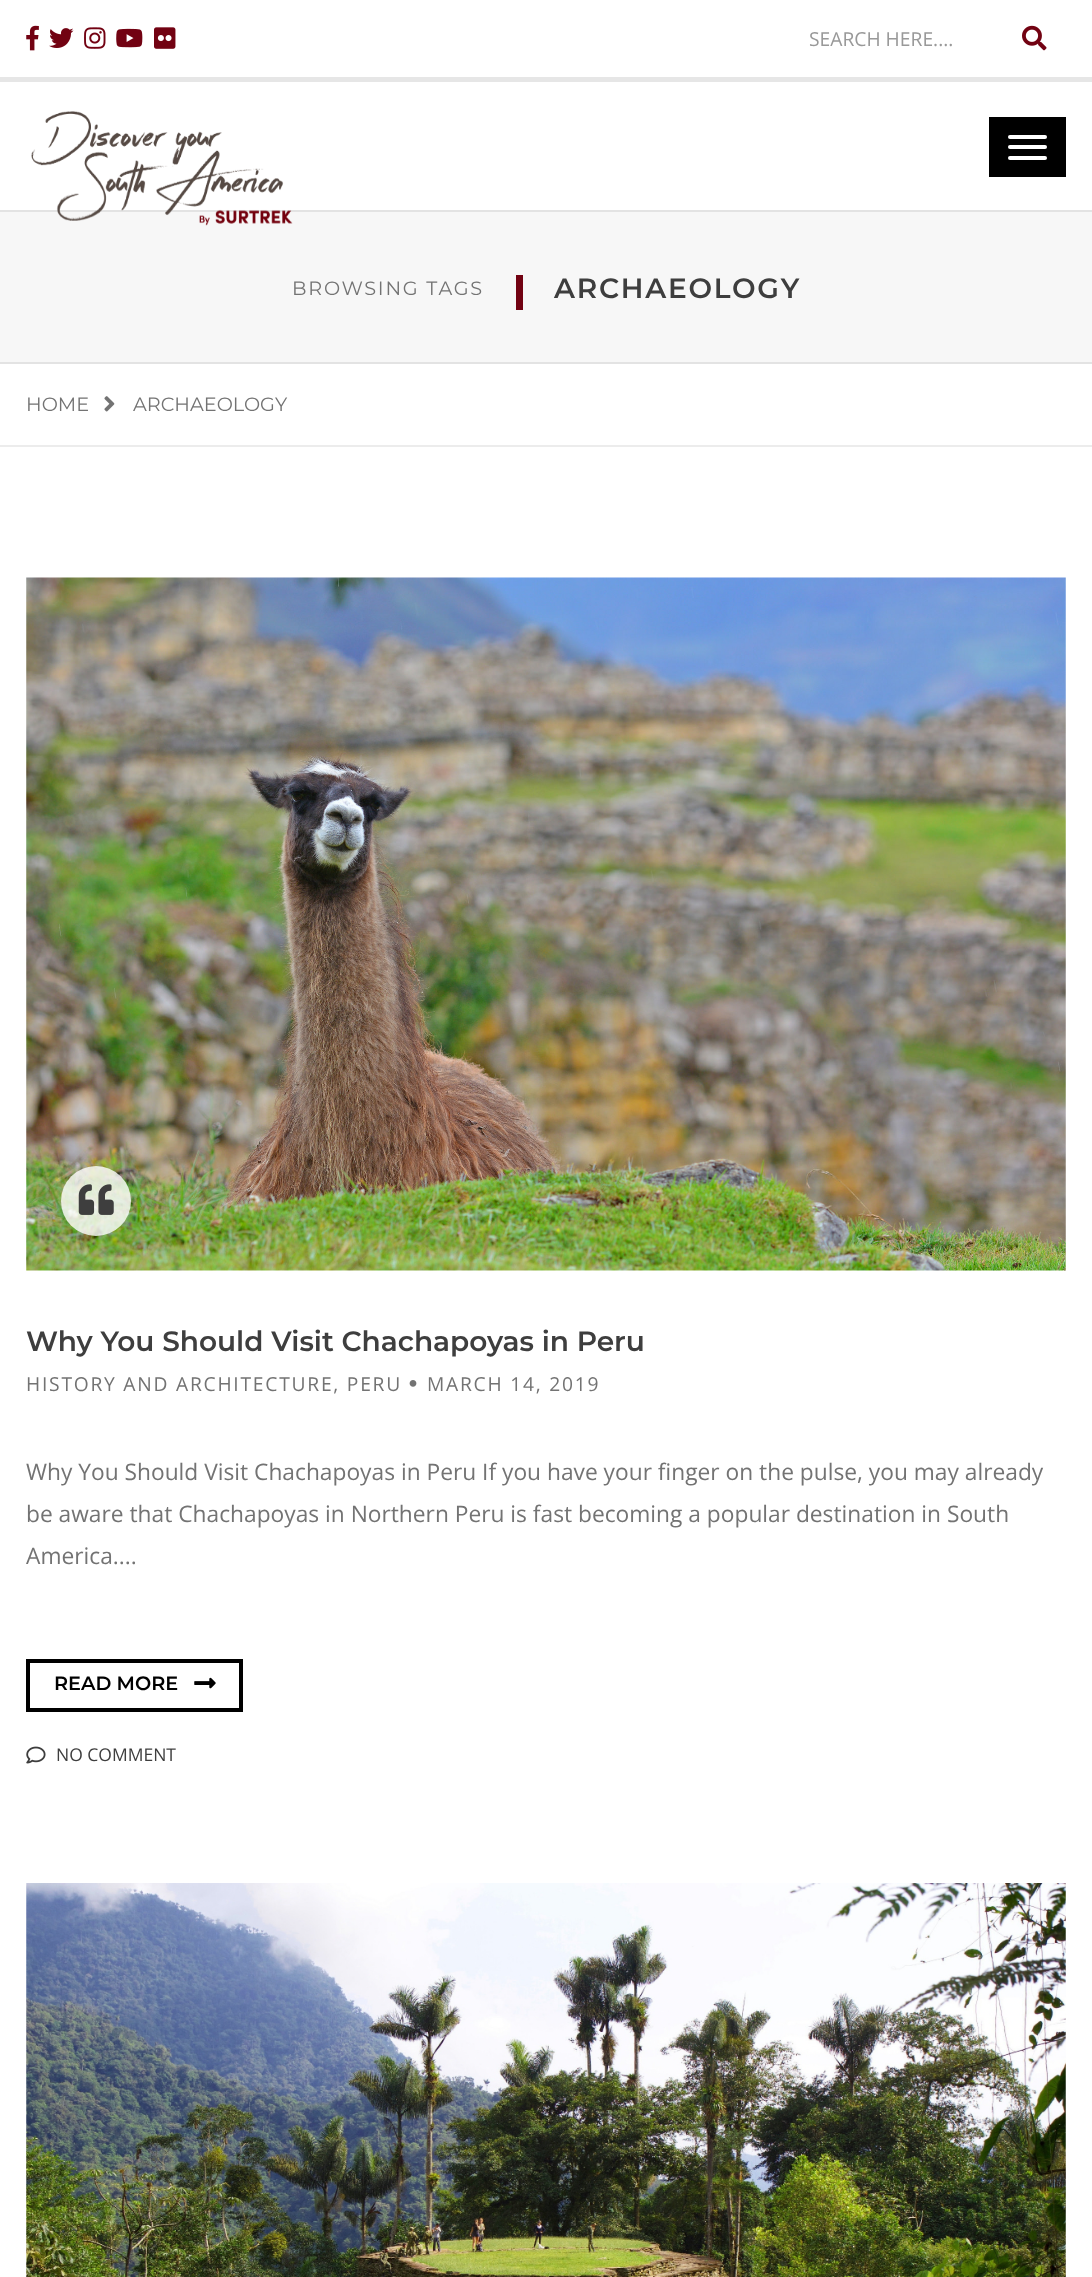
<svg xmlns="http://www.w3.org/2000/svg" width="1092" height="2277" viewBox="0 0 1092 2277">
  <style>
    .t1 { font: 19.25px Open Sans; fill: #999; }
    .t2 { font: 19.25px Montserrat; letter-spacing: 1.75px; fill: #737373; }
    .t3 { font: 600 28px Montserrat; letter-spacing: 1.75px; fill: #3e3e3e; }
    .t4 { font: 19.25px Montserrat; fill: #737373; }
    .t5 { font: 600 28px Montserrat; fill: #3e3e3e; }
    .t6 { font: 19.25px Open Sans; letter-spacing: 1.75px; fill: #737373; }
    .t7 { font: 22.75px Open Sans; fill: #737373; }
    .t8 { font: 600 19.25px Montserrat; fill: #000; }
    .t9 { font: 17.5px Open Sans; fill: #3e3e3e; }
  </style>
  <rect width="100%" height="100%" fill="#fff"/>
  <rect x="0" y="77" width="1092" height="5" fill="#e6e6e6"/>
  <image x="26" y="25" width="13" height="26" href="images/1.png"/>
  <image x="49" y="28" width="25" height="20" href="images/2.png"/>
  <image x="84" y="27" width="22" height="22" href="images/3.png"/>
  <image x="116" y="28" width="27" height="20" href="images/4.png"/>
  <image x="154" y="27" width="22" height="22" href="images/5.png"/>
  <text x="809" y="46" class="t1">SEARCH HERE....</text>
  <image x="1022" y="25" width="25" height="26" href="images/6.png"/>
  <rect x="0" y="212" width="1092" height="150" fill="#f7f7f7"/>
  <rect x="0" y="210" width="1092" height="2" fill="#e3e3e3"/>
  <image x="31" y="111" width="262" height="115" href="images/7.png"/>
  <rect x="989" y="117" width="77" height="60" fill="#000"/>
  <rect x="1008" y="135" width="39" height="4" rx="2" fill="#fff"/>
  <rect x="1008" y="145" width="39" height="4" rx="2" fill="#fff"/>
  <rect x="1008" y="156" width="39" height="4" rx="2" fill="#fff"/>
  <rect x="0" y="362" width="1092" height="2" fill="#e3e3e3"/>
  <text x="292" y="295" class="t2">BROWSING TAGS</text>
  <rect x="516" y="275" width="7" height="35" fill="#720212"/>
  <text x="554" y="298" class="t3">ARCHAEOLOGY</text>
  <rect x="0" y="445" width="1092" height="2" fill="#ececec"/>
  <text x="26" y="411" class="t4">HOME</text>
  <image x="104" y="396" width="11" height="16" href="images/8.png"/>
  <text x="133" y="411" class="t4">ARCHAEOLOGY</text>
  <image x="26" y="577" width="1040" height="694" href="images/9.png"/>
  <circle cx="96" cy="1201" r="35" fill="#ffffffcc"/>
  <image x="78" y="1184" width="36" height="31" href="images/10.png"/>
  <text x="26" y="1351" class="t5">Why You Should Visit Chachapoyas in Peru</text>
  <text x="26" y="1391" class="t6">HISTORY AND ARCHITECTURE, PERU</text>
  <image x="409" y="1380" width="8" height="7" href="images/11.png"/>
  <text x="427" y="1391" class="t6">MARCH 14, 2019</text>
  <text x="26" y="1480" class="t7">Why You Should Visit Chachapoyas in Peru If you have your finger on the pulse, you may already</text>
  <text x="26" y="1522" class="t7">be aware that Chachapoyas in Northern Peru is fast becoming a popular destination in South</text>
  <text x="26" y="1564" class="t7">America....</text>
  <rect x="28" y="1661" width="213" height="49" fill="none" stroke="#000" stroke-width="4"/>
  <text x="54" y="1690" class="t8">READ MORE</text>
  <image x="194" y="1677" width="22" height="12" href="images/12.png"/>
  <image x="26" y="1746" width="20" height="18" href="images/13.png"/>
  <text x="56" y="1761" class="t9">NO COMMENT</text>
  <image x="26" y="1883" width="1040" height="394" href="images/14.png"/>
</svg>
